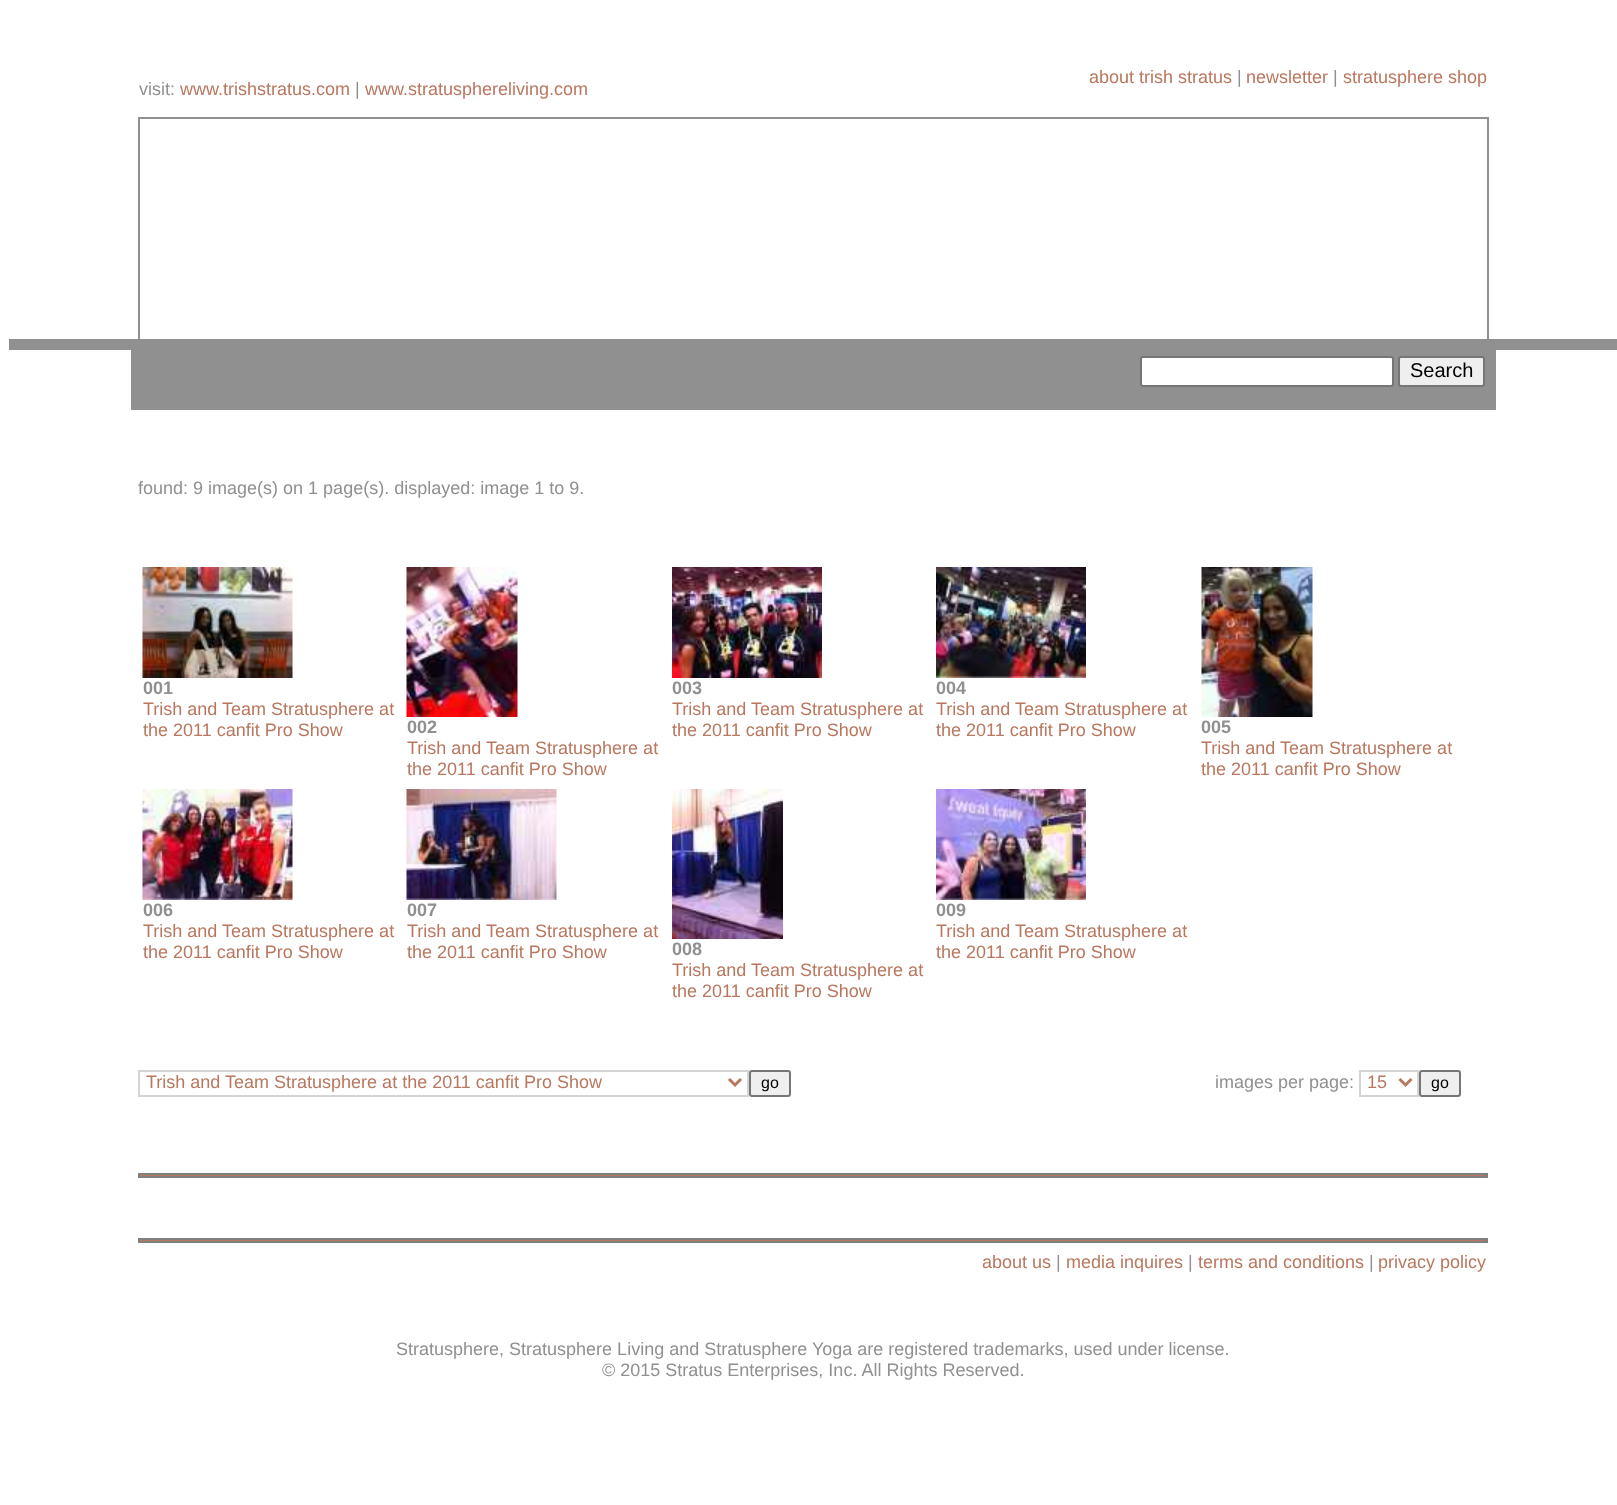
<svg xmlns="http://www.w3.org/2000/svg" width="1617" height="1505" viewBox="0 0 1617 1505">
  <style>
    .t1 { font: 18px Liberation Sans; fill: #b9775f; }
    .t2 { font: 18px Liberation Sans; fill: #909090; }
    .t3 { font: 20px Liberation Sans; fill: #000; }
    .t4 { font: bold 18px Liberation Sans; fill: #909090; }
    .t5 { font: 16px Liberation Sans; fill: #000; }
  </style>
  <rect width="100%" height="100%" fill="#fff"/>
  <rect x="9" y="339" width="1608" height="11" fill="#909090"/>
  <text x="1089" y="83" class="t1">about trish stratus</text>
  <text x="1237" y="83" class="t2">|</text>
  <text x="1246" y="83" class="t1">newsletter</text>
  <text x="1333" y="83" class="t2">|</text>
  <text x="1343" y="83" class="t1">stratusphere shop</text>
  <text x="139" y="95" class="t2">visit:</text>
  <text x="180" y="95" class="t1">www.trishstratus.com</text>
  <text x="355" y="95" class="t2">|</text>
  <text x="365" y="95" class="t1">www.stratusphereliving.com</text>
  <rect x="138" y="117" width="1350" height="2" fill="#909090"/>
  <rect x="1487" y="117" width="2" height="222" fill="#909090"/>
  <rect x="138" y="117" width="2" height="222" fill="#909090"/>
  <rect x="131" y="350" width="1365" height="60" fill="#909090"/>
  <rect x="1141" y="357" width="252" height="29" rx="2" fill="#fff" stroke="#767676" stroke-width="2"/>
  <rect x="1399" y="357" width="85" height="29" rx="2" fill="#efefef" stroke="#767676" stroke-width="2"/>
  <text x="1410" y="377" class="t3">Search</text>
  <text x="138" y="494" class="t2">found: 9 image(s) on 1 page(s). displayed: image 1 to 9.</text>
  <image x="142" y="567" width="151" height="111" href="images/1.png"/>
  <text x="143" y="694" class="t4">001</text>
  <text x="143" y="715" class="t1">Trish and Team Stratusphere at</text>
  <text x="143" y="736" class="t1">the 2011 canfit Pro Show</text>
  <image x="672" y="567" width="150" height="111" href="images/2.png"/>
  <text x="672" y="694" class="t4">003</text>
  <text x="672" y="715" class="t1">Trish and Team Stratusphere at</text>
  <text x="672" y="736" class="t1">the 2011 canfit Pro Show</text>
  <image x="936" y="567" width="150" height="111" href="images/3.png"/>
  <text x="936" y="694" class="t4">004</text>
  <text x="936" y="715" class="t1">Trish and Team Stratusphere at</text>
  <text x="936" y="736" class="t1">the 2011 canfit Pro Show</text>
  <image x="406" y="567" width="112" height="150" href="images/4.png"/>
  <text x="407" y="733" class="t4">002</text>
  <text x="407" y="754" class="t1">Trish and Team Stratusphere at</text>
  <text x="407" y="775" class="t1">the 2011 canfit Pro Show</text>
  <image x="1201" y="567" width="112" height="150" href="images/5.png"/>
  <text x="1201" y="733" class="t4">005</text>
  <text x="1201" y="754" class="t1">Trish and Team Stratusphere at</text>
  <text x="1201" y="775" class="t1">the 2011 canfit Pro Show</text>
  <image x="142" y="789" width="151" height="111" href="images/6.png"/>
  <text x="143" y="916" class="t4">006</text>
  <text x="143" y="937" class="t1">Trish and Team Stratusphere at</text>
  <text x="143" y="958" class="t1">the 2011 canfit Pro Show</text>
  <image x="406" y="789" width="151" height="111" href="images/7.png"/>
  <text x="407" y="916" class="t4">007</text>
  <text x="407" y="937" class="t1">Trish and Team Stratusphere at</text>
  <text x="407" y="958" class="t1">the 2011 canfit Pro Show</text>
  <image x="936" y="789" width="150" height="111" href="images/8.png"/>
  <text x="936" y="916" class="t4">009</text>
  <text x="936" y="937" class="t1">Trish and Team Stratusphere at</text>
  <text x="936" y="958" class="t1">the 2011 canfit Pro Show</text>
  <image x="672" y="789" width="111" height="150" href="images/9.png"/>
  <text x="672" y="955" class="t4">008</text>
  <text x="672" y="976" class="t1">Trish and Team Stratusphere at</text>
  <text x="672" y="997" class="t1">the 2011 canfit Pro Show</text>
  <rect x="139" y="1071" width="609" height="25" fill="none" stroke="#d4d4d4" stroke-width="2"/>
  <path d="M729 1079L735 1085L741 1079" fill="none" stroke="#b9775f" stroke-width="3"/>
  <text x="146" y="1088" class="t1">Trish and Team Stratusphere at the 2011 canfit Pro Show</text>
  <rect x="750" y="1071" width="40" height="25" rx="2" fill="#efefef" stroke="#767676" stroke-width="2"/>
  <text x="761" y="1088" class="t5">go</text>
  <text x="1215" y="1088" class="t2">images per page:</text>
  <rect x="1360" y="1071" width="58" height="25" fill="none" stroke="#d4d4d4" stroke-width="2"/>
  <path d="M1399.5 1079L1405.5 1085L1411.5 1079" fill="none" stroke="#b9775f" stroke-width="3"/>
  <text x="1367" y="1088" class="t1">15</text>
  <rect x="1420" y="1071" width="40" height="25" rx="2" fill="#efefef" stroke="#767676" stroke-width="2"/>
  <text x="1431" y="1088" class="t5">go</text>
  <rect x="139" y="1174" width="1348" height="3" fill="#b9775f" stroke="#808080" stroke-width="2"/>
  <rect x="139" y="1239" width="1348" height="3" fill="#b9775f" stroke="#808080" stroke-width="2"/>
  <text x="982" y="1268" class="t1">about us</text>
  <text x="1056" y="1268" class="t2">|</text>
  <text x="1066" y="1268" class="t1">media inquires</text>
  <text x="1188" y="1268" class="t2">|</text>
  <text x="1198" y="1268" class="t1">terms and conditions</text>
  <text x="1369" y="1268" class="t2">|</text>
  <text x="1378" y="1268" class="t1">privacy policy</text>
  <text x="396" y="1355" class="t2">Stratusphere, Stratusphere Living and Stratusphere Yoga are registered trademarks, used under license.</text>
  <text x="602" y="1376" class="t2">© 2015 Stratus Enterprises, Inc. All Rights Reserved.</text>
</svg>
